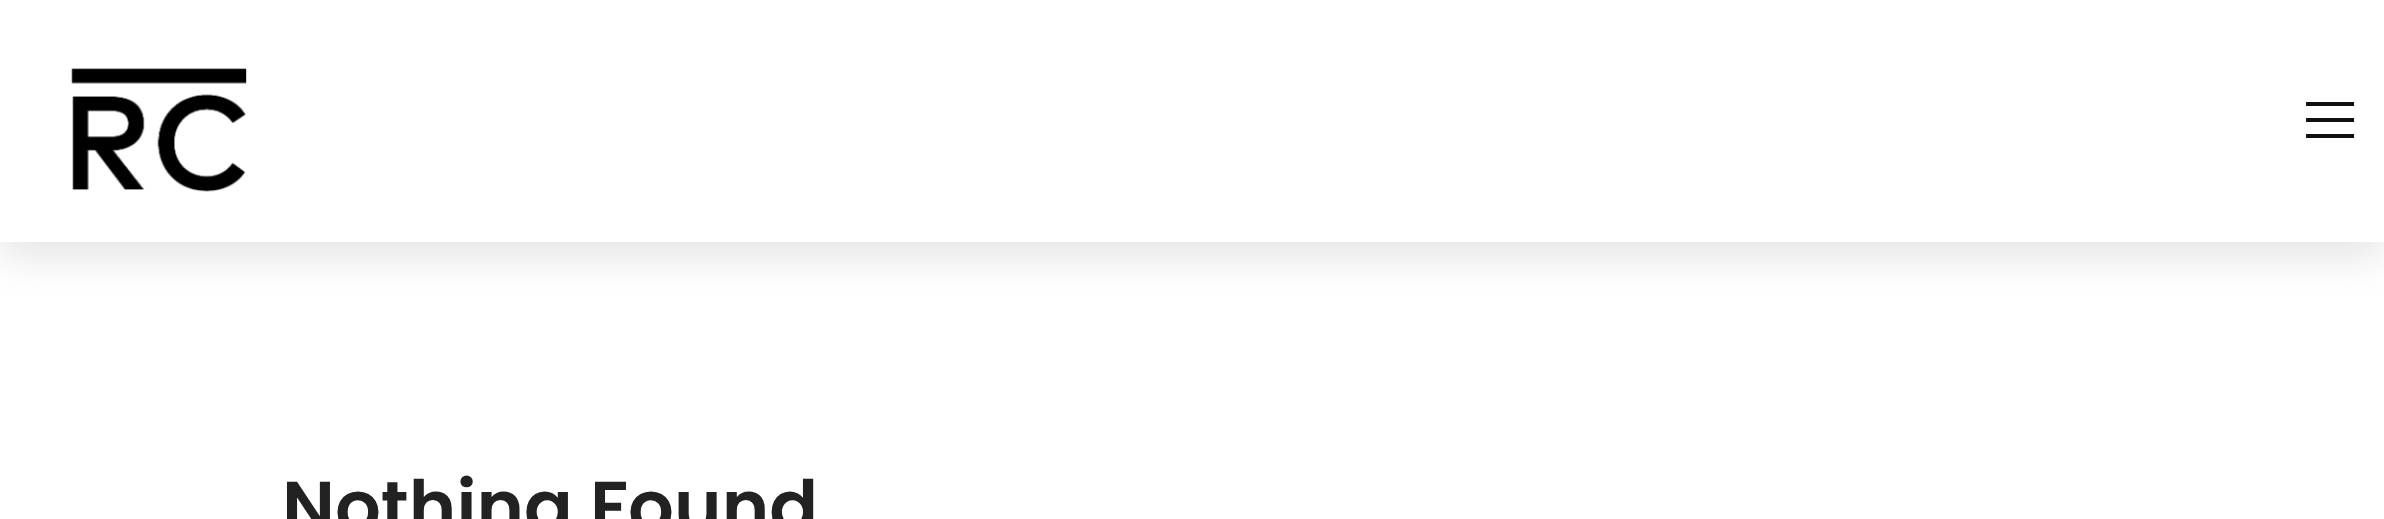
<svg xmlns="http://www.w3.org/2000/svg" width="2384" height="519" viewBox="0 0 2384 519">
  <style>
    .t1 { font: 600 72px Poppins; fill: #222; }
  </style>
  <rect width="100%" height="100%" fill="#fff"/>
  <rect x="0" y="16" width="2384" height="242" fill="#0000001a" filter="blur(20px)"/>
  <rect x="0" y="0" width="2384" height="242" fill="#fff"/>
  <image x="71" y="68" width="176" height="124" href="images/1.png"/>
  <rect x="2306" y="118" width="48" height="4" fill="#111112"/>
  <rect x="2306" y="102" width="48" height="4" fill="#111112"/>
  <rect x="2306" y="134" width="48" height="4" fill="#111112"/>
  <text x="282" y="532" class="t1">Nothing Found</text>
</svg>
